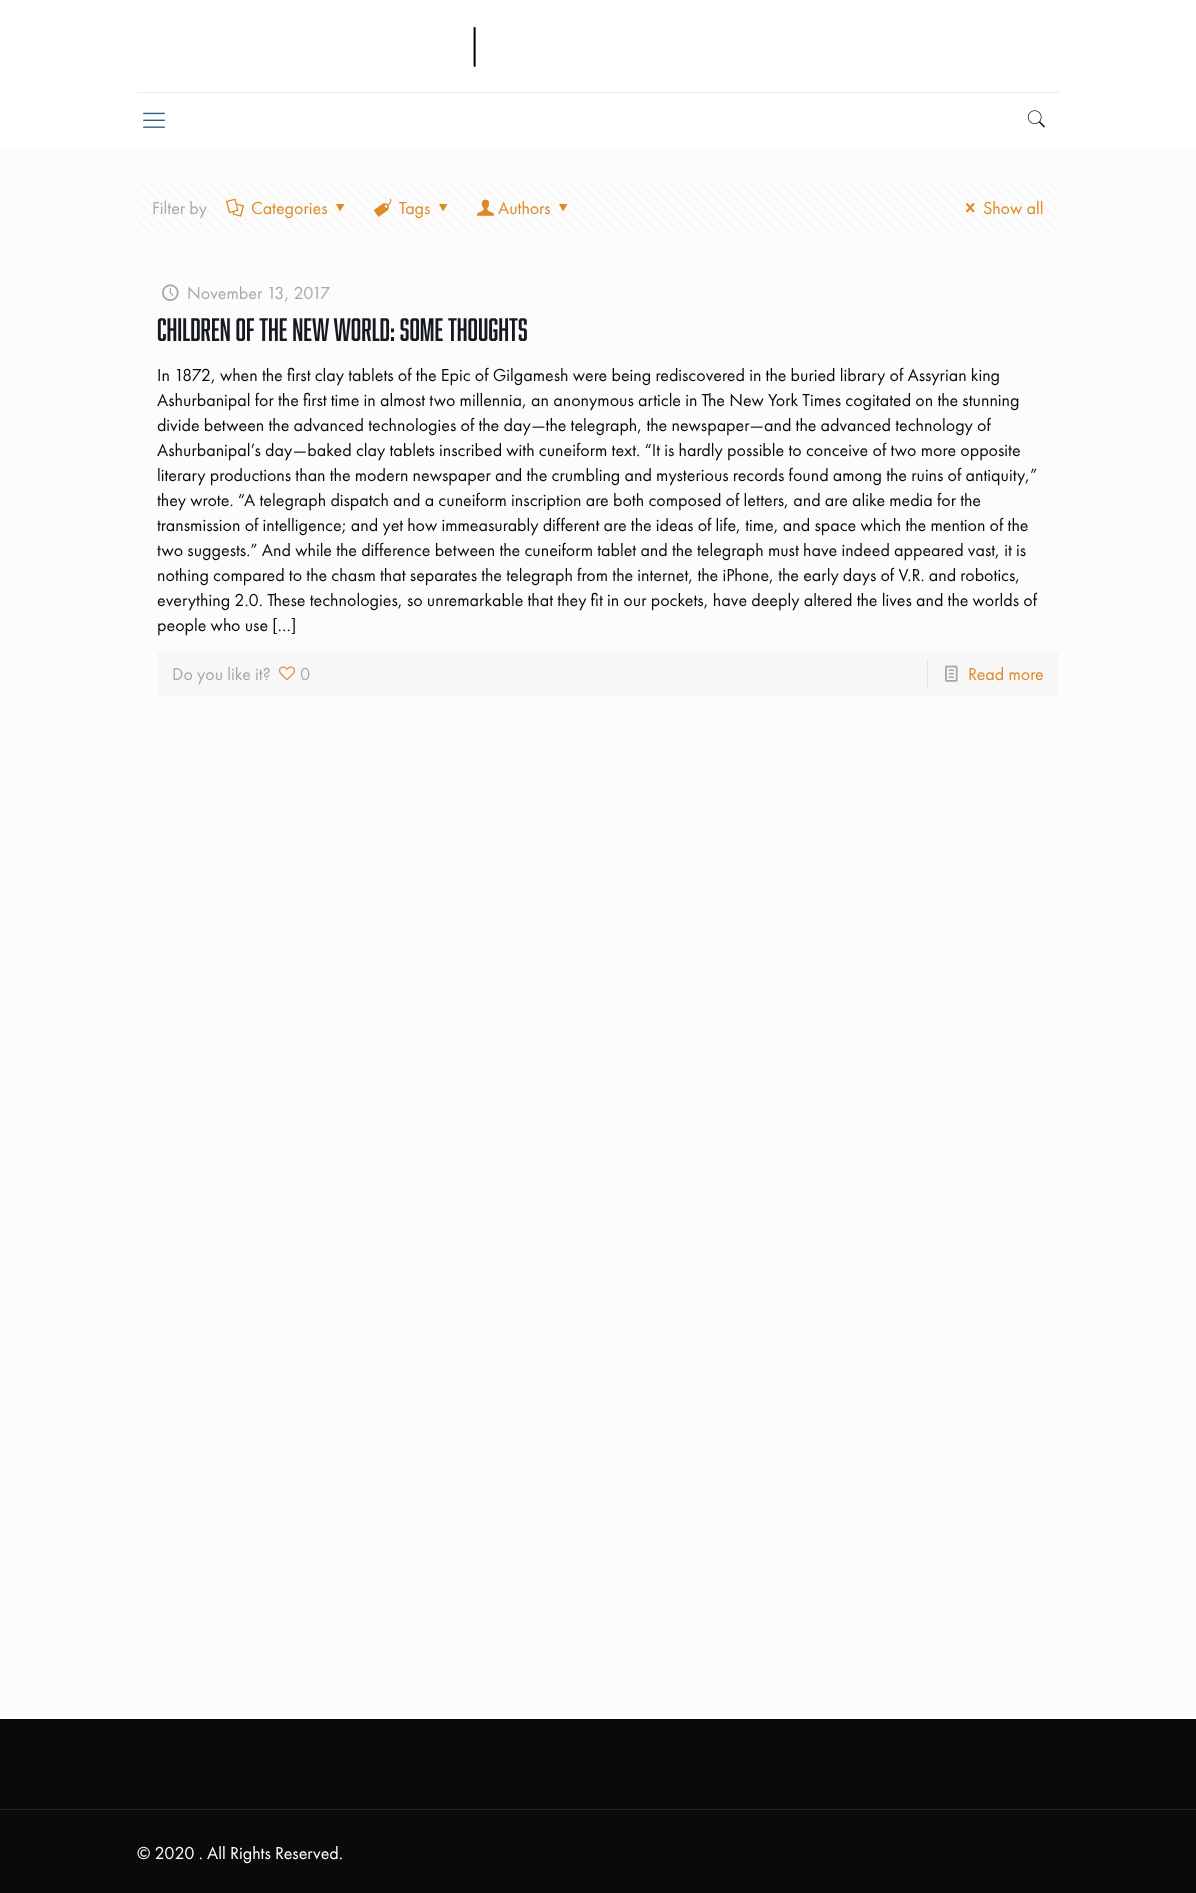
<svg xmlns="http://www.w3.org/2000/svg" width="1196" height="1893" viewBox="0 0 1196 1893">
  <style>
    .t1 { font: 18px Futura PT; fill: #a8a8a8; }
    .t2 { font: 18px Futura PT; fill: #dd8b25; }
    .t3 { font: 30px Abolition; fill: #161922; }
    .t4 { font: 18px Futura PT; fill: #0a0a0a; }
    .t5 { font: 18px Futura PT; fill: #fff; }
  </style>
  <rect width="100%" height="100%" fill="#fcfcfc"/>
  <rect x="0" y="0" width="1196" height="150" fill="#fff"/>
  <rect x="137" y="92" width="922" height="1" fill="#ebebeb"/>
  <image x="473" y="26" width="3" height="41" href="images/1.png"/>
  <image x="143" y="112" width="22" height="16" href="images/2.png"/>
  <image x="1027" y="110" width="19" height="18" href="images/3.png"/>
  <image x="137" y="180" width="922" height="55" href="images/4.png"/>
  <text x="152" y="214" class="t1">Filter by</text>
  <image x="226" y="198" width="18" height="19" href="images/5.png"/>
  <text x="251" y="214" class="t2">Categories</text>
  <path d="M344.5 204L340 211.5L336 204Z" fill="#dd8b25"/>
  <image x="374" y="198" width="18" height="19" href="images/6.png"/>
  <text x="399" y="214" class="t2">Tags</text>
  <path d="M447.5 204L443 211.5L439 204Z" fill="#dd8b25"/>
  <image x="477" y="199" width="17" height="17" href="images/7.png"/>
  <text x="498" y="214" class="t2">Authors</text>
  <path d="M567.5 204L563 211.5L559 204Z" fill="#dd8b25"/>
  <image x="966" y="203" width="9" height="10" href="images/8.png"/>
  <text x="983" y="214" class="t2">Show all</text>
  <image x="162" y="284" width="17" height="17" href="images/9.png"/>
  <text x="187" y="299" class="t1">November 13, 2017</text>
  <text x="157" y="341" class="t3">Children of the New World: Some Thoughts</text>
  <text x="157" y="381" class="t4">In 1872, when the first clay tablets of the Epic of Gilgamesh were being rediscovered in the buried library of Assyrian king</text>
  <text x="157" y="406" class="t4">Ashurbanipal for the first time in almost two millennia, an anonymous article in The New York Times cogitated on the stunning</text>
  <text x="157" y="431" class="t4">divide between the advanced technologies of the day—the telegraph, the newspaper—and the advanced technology of</text>
  <text x="157" y="456" class="t4">Ashurbanipal’s day—baked clay tablets inscribed with cuneiform text. “It is hardly possible to conceive of two more opposite</text>
  <text x="157" y="481" class="t4">literary productions than the modern newspaper and the crumbling and mysterious records found among the ruins of antiquity,”</text>
  <text x="157" y="506" class="t4">they wrote. “A telegraph dispatch and a cuneiform inscription are both composed of letters, and are alike media for the</text>
  <text x="157" y="531" class="t4">transmission of intelligence; and yet how immeasurably different are the ideas of life, time, and space which the mention of the</text>
  <text x="157" y="556" class="t4">two suggests.” And while the difference between the cuneiform tablet and the telegraph must have indeed appeared vast, it is</text>
  <text x="157" y="581" class="t4">nothing compared to the chasm that separates the telegraph from the internet, the iPhone, the early days of V.R. and robotics,</text>
  <text x="157" y="606" class="t4">everything 2.0. These technologies, so unremarkable that they fit in our pockets, have deeply altered the lives and the worlds of</text>
  <text x="157" y="631" class="t4">people who use […]</text>
  <rect x="157" y="652" width="902" height="44" fill="#f7f7f7"/>
  <text x="172" y="680" class="t1">Do you like it?</text>
  <image x="279" y="666" width="16" height="15" href="images/10.png"/>
  <text x="300" y="680" class="t1">0</text>
  <rect x="927" y="659" width="1" height="30" fill="#e3e3e3"/>
  <image x="945" y="665" width="13" height="17" href="images/11.png"/>
  <text x="968" y="680" class="t2">Read more</text>
  <rect x="0" y="1719" width="1196" height="174" fill="#0a0a0a"/>
  <rect x="0" y="1809" width="1196" height="1" fill="#232323"/>
  <text x="137" y="1859" class="t5">© 2020 . All Rights Reserved.</text>
</svg>
